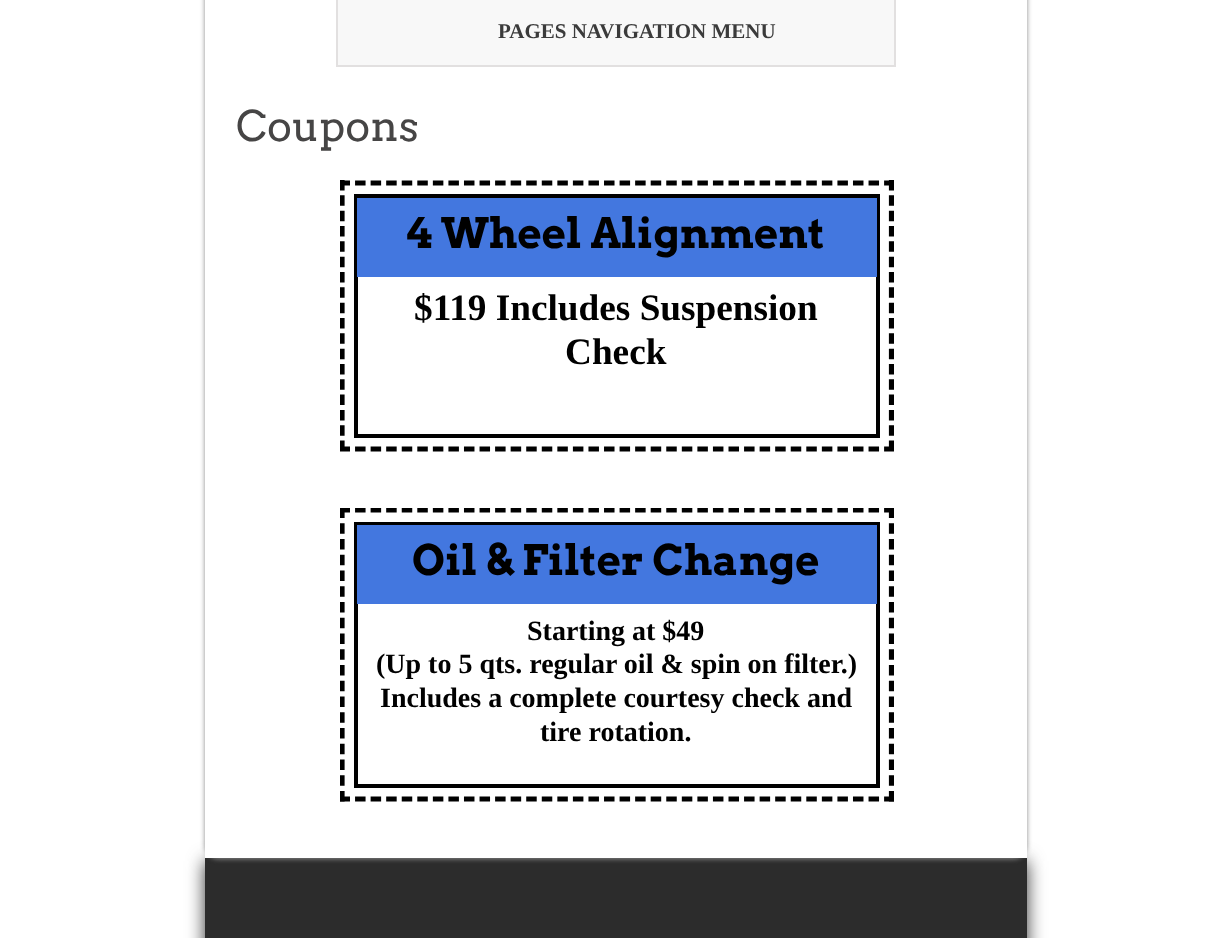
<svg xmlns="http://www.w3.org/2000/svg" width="1231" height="938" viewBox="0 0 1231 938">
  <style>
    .t1 { font: bold 21px Liberation Serif; fill: #3b3b3b; }
    .t2 { font: 42px Arvo; fill: #464545; }
    .t3 { font: bold 42px Arvo; fill: #000; }
    .t4 { font: bold 37.25px Liberation Serif; fill: #000; }
    .t5 { font: bold 28px Liberation Serif; fill: #000; }
  </style>
  <defs>
    <clipPath id="clip1"><rect x="340" y="180" width="554" height="310"/></clipPath>
    <clipPath id="clip2"><rect x="340" y="508" width="554" height="332"/></clipPath>
  </defs>
  <rect width="100%" height="100%" fill="#fff"/>
  <rect x="205" y="861" width="822" height="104" fill="#333" filter="blur(9px)"/>
  <rect x="205" y="858" width="822" height="80" fill="#2c2c2c"/>
  <rect x="205" y="-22" width="822" height="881" rx="14" fill="#888" filter="blur(2.5px)"/>
  <rect x="205" y="0" width="822" height="858" fill="#fff"/>
  <rect x="337" y="-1" width="558" height="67" fill="#f8f8f8" stroke="#e2e0e0" stroke-width="2"/>
  <text x="498" y="38" class="t1">PAGES NAVIGATION MENU</text>
  <text x="236" y="141" class="t2">Coupons</text>
  <g clip-path="url(#clip1)">
    <path d="M339.5 183H894" fill="none" stroke="#000" stroke-width="5.2" stroke-dasharray="10.5 5.06"/>
    <path d="M891.5 180V451.5" fill="none" stroke="#000" stroke-width="5.2" stroke-dasharray="10.5 4.83"/>
    <path d="M339.5 449H894" fill="none" stroke="#000" stroke-width="5.2" stroke-dasharray="10.5 5.06"/>
    <path d="M342 180V451.5" fill="none" stroke="#000" stroke-width="5.2" stroke-dasharray="10.5 4.83"/>
  </g>
  <rect x="356" y="196" width="522" height="240" fill="none" stroke="#000" stroke-width="4"/>
  <rect x="357" y="198" width="520" height="79" fill="#4377df"/>
  <text x="407" y="248" class="t3">4 Wheel Alignment</text>
  <text x="414" y="320" class="t4">$119 Includes Suspension</text>
  <text x="565" y="364" class="t4">Check</text>
  <g clip-path="url(#clip2)">
    <path d="M339.5 510H894" fill="none" stroke="#000" stroke-width="5.2" stroke-dasharray="10.5 5.06"/>
    <path d="M891.5 507.5V801.5" fill="none" stroke="#000" stroke-width="5.2" stroke-dasharray="10.5 5.25"/>
    <path d="M339.5 799H894" fill="none" stroke="#000" stroke-width="5.2" stroke-dasharray="10.5 5.06"/>
    <path d="M342 507.5V801.5" fill="none" stroke="#000" stroke-width="5.2" stroke-dasharray="10.5 5.25"/>
  </g>
  <rect x="356" y="524" width="522" height="262" fill="none" stroke="#000" stroke-width="4"/>
  <rect x="357" y="525" width="520" height="79" fill="#4377df"/>
  <text x="412" y="575" class="t3">Oil &amp; Filter Change</text>
  <text x="527" y="640" class="t5">Starting at $49</text>
  <text x="376" y="673" class="t5">(Up to 5 qts. regular oil &amp; spin on filter.)</text>
  <text x="380" y="707" class="t5">Includes a complete courtesy check and</text>
  <text x="540" y="741" class="t5">tire rotation.</text>
</svg>
